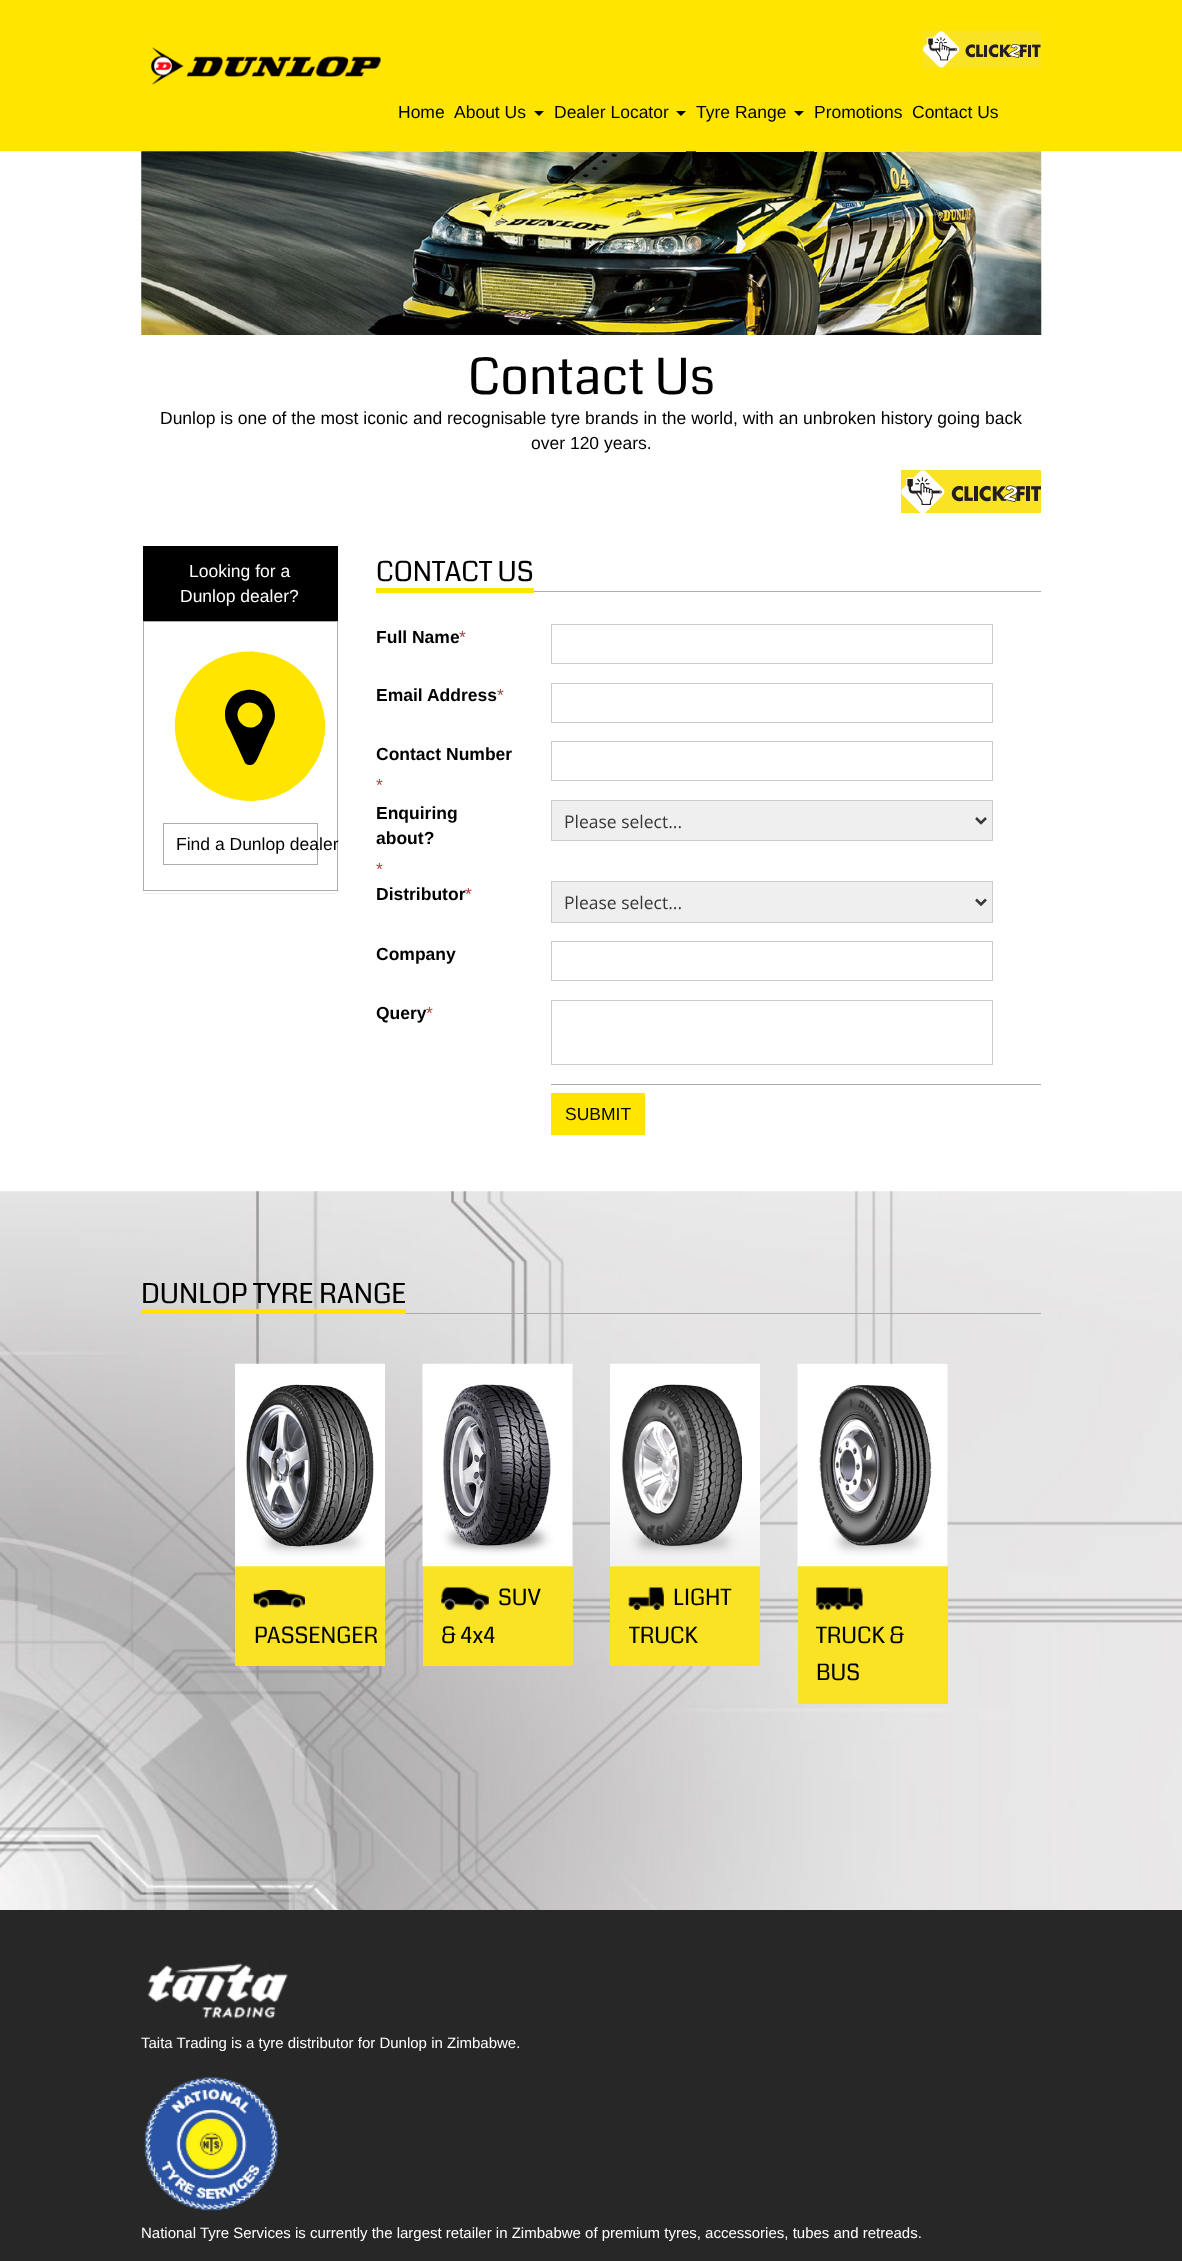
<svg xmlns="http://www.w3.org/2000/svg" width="1182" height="2261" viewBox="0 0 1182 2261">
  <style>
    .t1 { font: 17.5px Liberation Sans; fill: #000; }
    .t2 { font: 50px Coda; fill: #000; }
    .t3 { font: 17.5px Liberation Sans; fill: #fff; }
    .t4 { font: 27.5px Coda; fill: #000; }
    .t5 { font: bold 17.5px Liberation Sans; fill: #000; }
    .t6 { font: 17.5px Liberation Sans; fill: #a94442; }
    .t7 { font: 17.5px Open Sans; fill: #393838; }
    .t8 { font: 22.5px Coda; fill: #000; }
    .t9 { font: 15px Liberation Sans; fill: #fff; }
  </style>
  <rect width="100%" height="100%" fill="#fff"/>
  <rect x="0" y="0" width="1182" height="151" fill="#ffe500"/>
  <rect x="923" y="31" width="118" height="37" fill="#fae325"/>
  <image x="923" y="31" width="118" height="37" href="images/1.png"/>
  <image x="151" y="47" width="230" height="38" href="images/2.png"/>
  <image x="141" y="151" width="901" height="184" href="images/3.png"/>
  <rect x="398" y="151" width="46" height="1" fill="#ffe500"/>
  <text x="398" y="118" class="t1">Home</text>
  <rect x="454" y="151" width="90" height="1" fill="#ffe500"/>
  <text x="454" y="118" class="t1">About Us</text>
  <path d="M534 111H544L539 116Z" fill="#000"/>
  <rect x="554" y="151" width="132" height="1" fill="#ffe500"/>
  <text x="554" y="118" class="t1">Dealer Locator</text>
  <path d="M676 111H686L681 116Z" fill="#000"/>
  <rect x="696" y="151" width="108" height="1" fill="#ffe500"/>
  <text x="696" y="118" class="t1">Tyre Range</text>
  <path d="M794 111H804L799 116Z" fill="#000"/>
  <rect x="814" y="151" width="89" height="1" fill="#ffe500"/>
  <text x="814" y="118" class="t1">Promotions</text>
  <rect x="913" y="151" width="86" height="1" fill="#ffe500"/>
  <text x="912" y="118" class="t1">Contact Us</text>
  <text x="468" y="394" class="t2">Contact Us</text>
  <text x="160" y="424" class="t1">Dunlop is one of the most iconic and recognisable tyre brands in the world, with an unbroken history going back</text>
  <text x="531" y="449" class="t1">over 120 years.</text>
  <rect x="901" y="470" width="140" height="43" fill="#fae325"/>
  <image x="901" y="470" width="140" height="43" href="images/4.png"/>
  <rect x="141" y="546" width="198" height="348" rx="5" fill="#0000000d" filter="blur(0.5px)"/>
  <rect x="141" y="545" width="198" height="348" rx="5" fill="#fff"/>
  <rect x="143" y="546" width="195" height="75" fill="#000"/>
  <text x="189" y="577" class="t3">Looking for a</text>
  <text x="180" y="602" class="t3">Dunlop dealer?</text>
  <rect x="143.5" y="621.5" width="194" height="269" fill="none" stroke="#ababab"/>
  <path d="M185 764C178 751 174 736 175 721C176 708 180 695 188 684C218 639 287 641 315 689C322 702 326 716 325 731C324 744 320 757 312 768C282 814 213 811 185 764Z" fill="#ffe500"/>
  <path d="M225 715C225 682 274 681 275 715C275 721 273 725 270 730L259 755C257 759 255 766 249 765C248 765 246 764 245 763L230 730C227 725 225 721 225 715ZM241 706C230 718 247 735 259 724C270 712 253 695 241 706Z" fill="#000"/>
  <rect x="163.5" y="823.5" width="154" height="41" fill="none" stroke="#ababab"/>
  <text x="176" y="850" class="t1">Find a Dunlop dealer</text>
  <rect x="534" y="591" width="507" height="1" fill="#ababab"/>
  <rect x="376" y="588" width="158" height="5" fill="#ffe500"/>
  <text x="376" y="581" class="t4">CONTACT US</text>
  <text x="376" y="643" class="t5">Full Name</text>
  <text x="459" y="643" class="t6">*</text>
  <rect x="551.5" y="624.5" width="441" height="39" fill="none" stroke="#ccc"/>
  <text x="376" y="701" class="t5">Email Address</text>
  <text x="497" y="701" class="t6">*</text>
  <rect x="551.5" y="683.5" width="441" height="39" fill="none" stroke="#ccc"/>
  <text x="376" y="760" class="t5">Contact Number</text>
  <text x="376" y="791" class="t6">*</text>
  <rect x="551.5" y="741.5" width="441" height="39" fill="none" stroke="#ccc"/>
  <text x="376" y="819" class="t5">Enquiring</text>
  <text x="376" y="844" class="t5">about?</text>
  <text x="376" y="875" class="t6">*</text>
  <rect x="551.5" y="800.5" width="441" height="40" fill="#efefef" stroke="#ccc"/>
  <path d="M976 818L981 823L986 818" fill="none" stroke="#393838" stroke-width="2.5"/>
  <text x="564" y="828" class="t7">Please select...</text>
  <text x="376" y="900" class="t5">Distributor</text>
  <text x="465" y="900" class="t6">*</text>
  <rect x="551.5" y="881.5" width="441" height="41" fill="#efefef" stroke="#ccc"/>
  <path d="M976 899.5L981 904.5L986 899.5" fill="none" stroke="#393838" stroke-width="2.5"/>
  <text x="564" y="909" class="t7">Please select...</text>
  <text x="376" y="960" class="t5">Company</text>
  <rect x="551.5" y="941.5" width="441" height="39" fill="none" stroke="#ccc"/>
  <text x="376" y="1019" class="t5">Query</text>
  <text x="426" y="1019" class="t6">*</text>
  <rect x="551.5" y="1000.5" width="441" height="64" fill="none" stroke="#ccc"/>
  <rect x="551" y="1084" width="490" height="1" fill="#ababab"/>
  <rect x="551" y="1093" width="94" height="42" fill="#ffe500"/>
  <text x="565" y="1120" class="t1">SUBMIT</text>
  <image x="0" y="1191" width="1182" height="719" href="images/5.png"/>
  <rect x="406" y="1313" width="635" height="1" fill="#ababab"/>
  <rect x="141" y="1309" width="265" height="5" fill="#ffe500"/>
  <text x="141" y="1303" class="t4">DUNLOP TYRE RANGE</text>
  <rect x="235" y="1566" width="150" height="100" fill="#fae325"/>
  <image x="235" y="1363" width="150" height="204" href="images/6.png"/>
  <image x="253" y="1590" width="52" height="18" href="images/7.png"/>
  <text x="254" y="1643" class="t8">PASSENGER</text>
  <rect x="423" y="1566" width="150" height="100" fill="#fae325"/>
  <image x="422" y="1363" width="151" height="204" href="images/8.png"/>
  <image x="441" y="1587" width="48" height="23" href="images/9.png"/>
  <text x="498" y="1605" class="t8">SUV</text>
  <text x="441" y="1643" class="t8">&amp; 4x4</text>
  <rect x="610" y="1566" width="150" height="100" fill="#fae325"/>
  <image x="610" y="1363" width="150" height="204" href="images/10.png"/>
  <image x="628" y="1587" width="36" height="23" href="images/11.png"/>
  <text x="673" y="1605" class="t8">LIGHT</text>
  <text x="629" y="1643" class="t8">TRUCK</text>
  <rect x="798" y="1566" width="150" height="138" fill="#fae325"/>
  <image x="797" y="1363" width="151" height="204" href="images/12.png"/>
  <image x="816" y="1587" width="47" height="23" href="images/13.png"/>
  <text x="816" y="1643" class="t8">TRUCK &amp;</text>
  <text x="816" y="1680" class="t8">BUS</text>
  <rect x="0" y="1910" width="1182" height="351" fill="#272727"/>
  <image x="147" y="1963" width="141" height="56" href="images/14.png"/>
  <text x="141" y="2048" class="t9">Taita Trading is a tyre distributor for Dunlop in Zimbabwe.</text>
  <image x="144" y="2077" width="135" height="134" href="images/15.png"/>
  <text x="141" y="2238" class="t9">National Tyre Services is currently the largest retailer in Zimbabwe of premium tyres, accessories, tubes and retreads.</text>
</svg>
